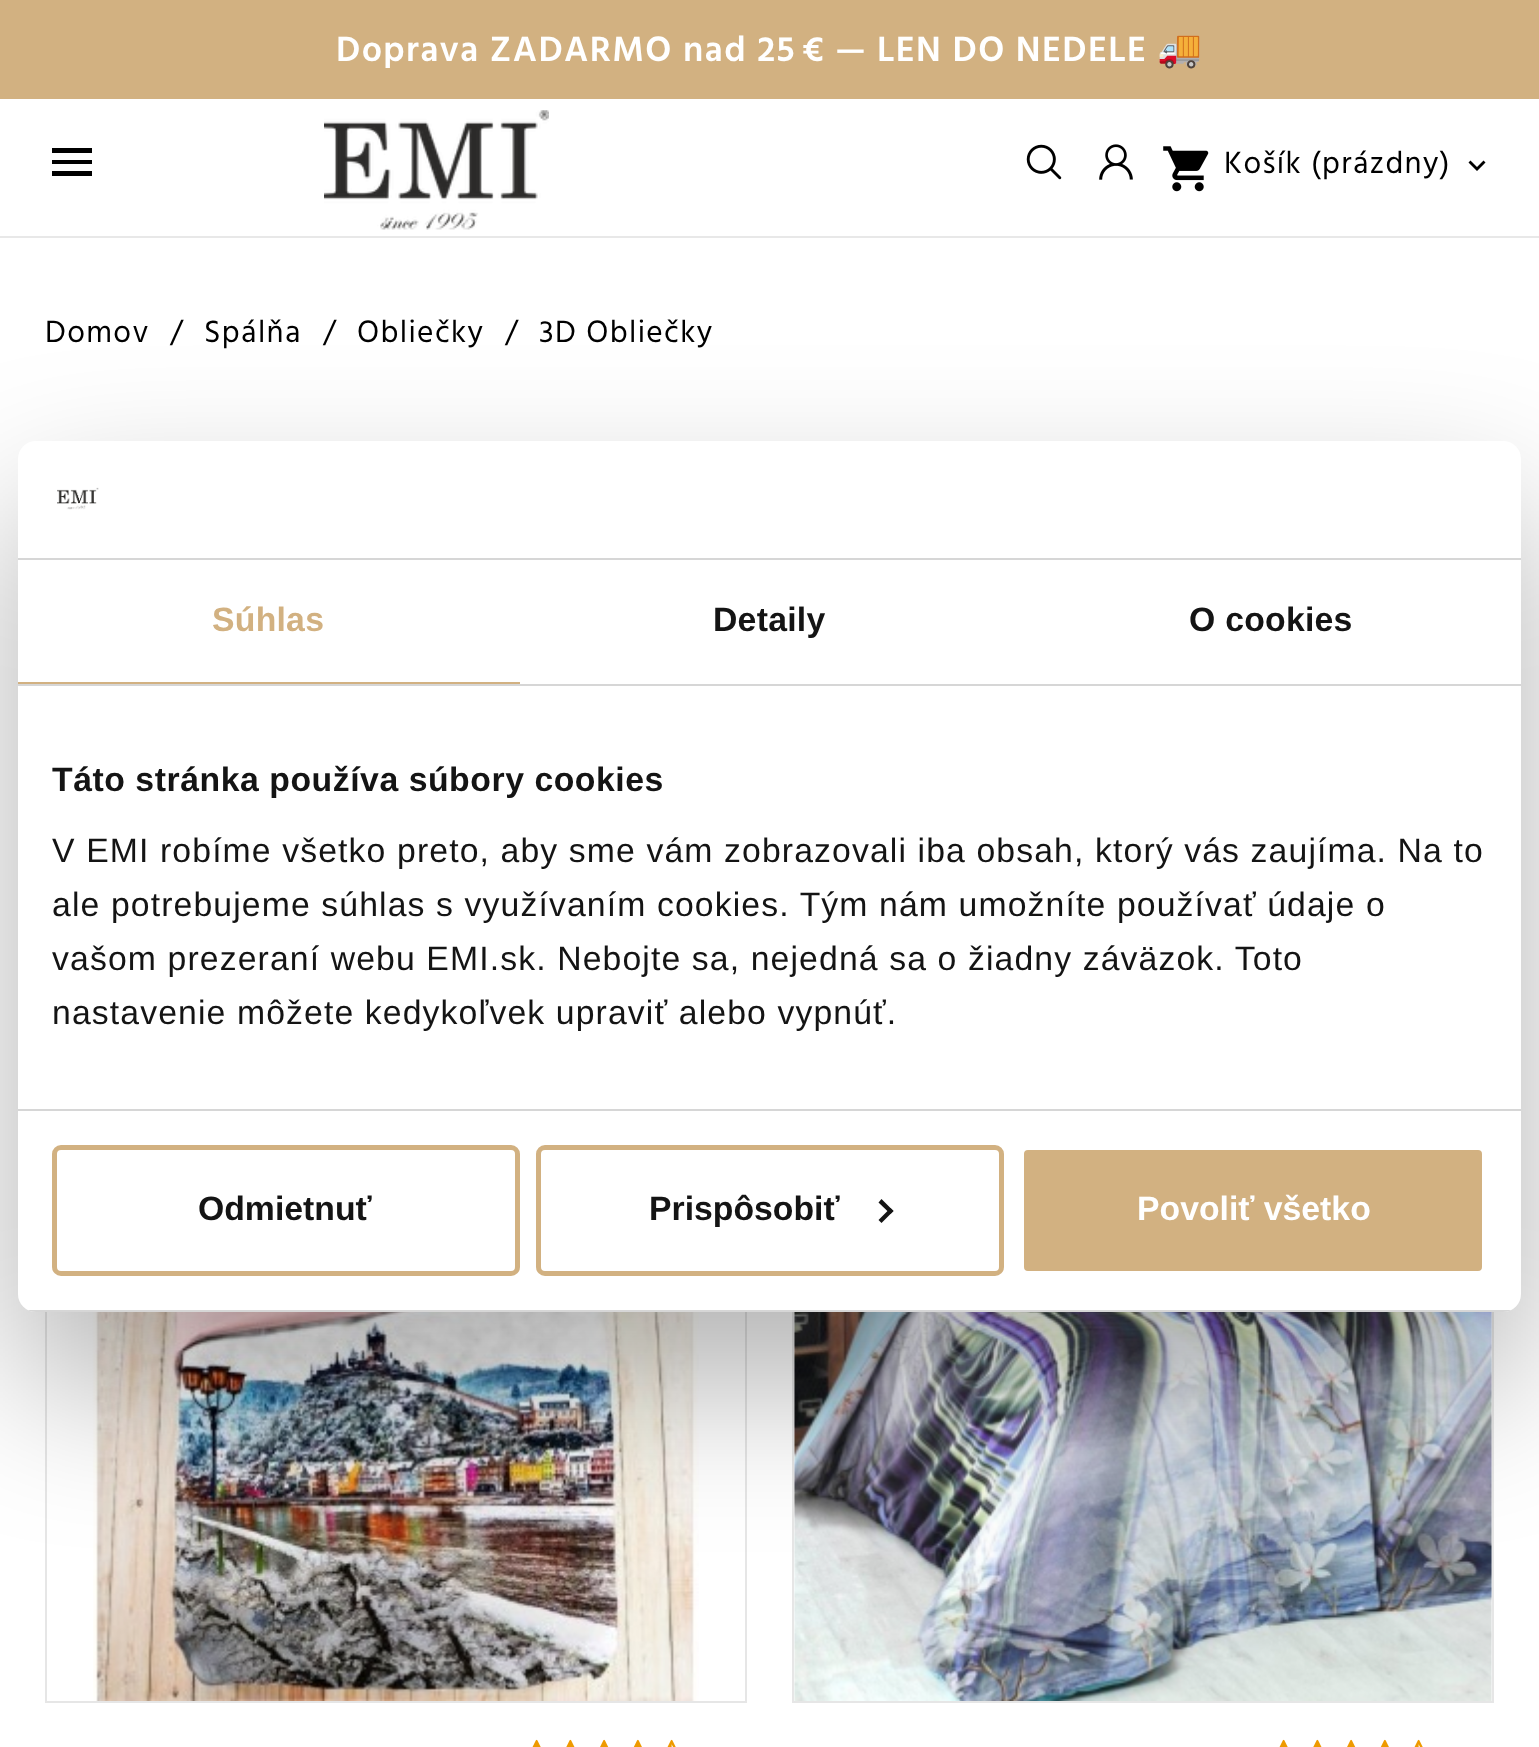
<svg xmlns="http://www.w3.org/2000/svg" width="1539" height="1747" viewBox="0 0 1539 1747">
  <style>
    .t1 { font: 600 36px Hind Madurai; letter-spacing: 1.35px; fill: #fff; }
    .t2 { font: bold 36px Noto Color Emoji; letter-spacing: 1.35px; fill: #fff; }
    .t3 { font: 31.5px Hind Madurai; letter-spacing: 1.35px; fill: #000; }
    .t4 { font: bold 33.75px Liberation Sans; letter-spacing: 0.25px; fill: #d2b181; }
    .t5 { font: bold 33.75px Liberation Sans; letter-spacing: 0.25px; fill: #141414; }
    .t6 { font: bold 33.75px Liberation Sans; letter-spacing: 0.55px; fill: #141414; }
    .t7 { font: 33.75px Liberation Sans; letter-spacing: 1.12px; fill: #141414; }
    .t8 { font: bold 33.75px Liberation Sans; fill: #141414; }
    .t9 { font: bold 33.75px Liberation Sans; fill: #fff; }
  </style>
  <defs>
    <clipPath id="clip1"><rect x="18" y="441" width="1503" height="871" rx="18"/></clipPath>
  </defs>
  <rect width="100%" height="100%" fill="#fff"/>
  <rect x="0" y="0" width="1539" height="99" fill="#d2b181"/>
  <text x="336" y="61" class="t1">Doprava ZADARMO nad 25 € — LEN DO NEDELE</text>
  <text x="1157" y="61" class="t2">🚚</text>
  <rect x="0" y="236" width="1539" height="2" fill="#e8e8e8"/>
  <path d="M52 148H92V153H52ZM52 164V160H92V164ZM52 176V171H92V176Z" fill="#000"/>
  <image x="324" y="110" width="225" height="120" href="images/1.png"/>
  <image x="1026" y="144" width="36" height="36" href="images/2.png"/>
  <image x="1099" y="144" width="34" height="36" href="images/3.png"/>
  <image x="1163" y="146" width="46" height="46" href="images/4.png"/>
  <text x="1224" y="173" class="t3">Košík (prázdny)</text>
  <path d="M1483.5 160.5L1485.5 162.5L1477 171L1468.5 162.5L1470.5 160.5L1477 167Z" fill="#000"/>
  <text x="45" y="342" class="t3">Domov</text>
  <text x="170" y="342" class="t3">/</text>
  <text x="204" y="342" class="t3">Spálňa</text>
  <text x="323" y="342" class="t3">/</text>
  <text x="357" y="342" class="t3">Obliečky</text>
  <text x="505" y="342" class="t3">/</text>
  <text x="539" y="342" class="t3">3D Obliečky</text>
  <rect x="46" y="1002" width="700" height="700" fill="none" stroke="#e6e6e6" stroke-width="2"/>
  <image x="93" y="1312" width="606" height="389" href="images/5.png"/>
  <image x="532" y="1739" width="9" height="8" href="images/6.png"/>
  <image x="566" y="1739" width="9" height="8" href="images/7.png"/>
  <image x="600" y="1739" width="9" height="8" href="images/8.png"/>
  <image x="633" y="1739" width="9" height="8" href="images/9.png"/>
  <image x="667" y="1739" width="9" height="8" href="images/10.png"/>
  <rect x="793" y="1002" width="700" height="700" fill="none" stroke="#e6e6e6" stroke-width="2"/>
  <image x="794" y="1312" width="698" height="389" href="images/11.png"/>
  <image x="1279" y="1739" width="9" height="8" href="images/6.png"/>
  <image x="1313" y="1739" width="9" height="8" href="images/7.png"/>
  <image x="1347" y="1739" width="9" height="8" href="images/8.png"/>
  <image x="1380" y="1739" width="9" height="8" href="images/9.png"/>
  <image x="1414" y="1739" width="9" height="8" href="images/10.png"/>
  <rect x="18" y="513" width="1503" height="871" rx="18" fill="#0000004d" filter="blur(76.5px)"/>
  <rect x="18" y="441" width="1503" height="871" rx="18" fill="#fff"/>
  <rect x="18" y="558" width="1503" height="2" fill="#d6d6d6"/>
  <image x="57" y="487" width="42" height="23" href="images/12.png"/>
  <rect x="18" y="684" width="1503" height="2" fill="#d6d6d6"/>
  <rect x="18" y="682" width="502" height="2" fill="#d2b181"/>
  <text x="212" y="631" class="t4">Súhlas</text>
  <text x="713" y="631" class="t5">Detaily</text>
  <text x="1189" y="631" class="t5">O cookies</text>
  <rect x="18" y="1109" width="1503" height="2" fill="#d6d6d6"/>
  <text x="52" y="791" class="t6">Táto stránka používa súbory cookies</text>
  <text x="52" y="862" class="t7">V EMI robíme všetko preto, aby sme vám zobrazovali iba obsah, ktorý vás zaujíma. Na to</text>
  <text x="52" y="916" class="t7">ale potrebujeme súhlas s využívaním cookies. Tým nám umožníte používať údaje o</text>
  <text x="52" y="970" class="t7">vašom prezeraní webu EMI.sk. Nebojte sa, nejedná sa o žiadny záväzok. Toto</text>
  <text x="52" y="1024" class="t7">nastavenie môžete kedykoľvek upraviť alebo vypnúť.</text>
  <g clip-path="url(#clip1)">
    <rect x="28" y="1310" width="1483" height="2" fill="#d6d6d6"/>
  </g>
  <rect x="54.5" y="1147.5" width="463" height="126" rx="6.5" fill="none" stroke="#d2b181" stroke-width="5"/>
  <text x="198" y="1220" class="t8">Odmietnuť</text>
  <rect x="538.5" y="1147.5" width="463" height="126" rx="6.5" fill="none" stroke="#d2b181" stroke-width="5"/>
  <text x="649" y="1220" class="t8">Prispôsobiť</text>
  <path d="M881.5 1199L893.5 1211L890.5 1214L878.5 1202.5Z" fill="#141414"/>
  <path d="M890.5 1208L893.5 1211L881.5 1223L878.5 1220Z" fill="#141414"/>
  <rect x="1021.5" y="1147.5" width="463" height="126" rx="6.5" fill="#d2b181" stroke="#fff" stroke-width="5"/>
  <text x="1137" y="1220" class="t9">Povoliť všetko</text>
</svg>
